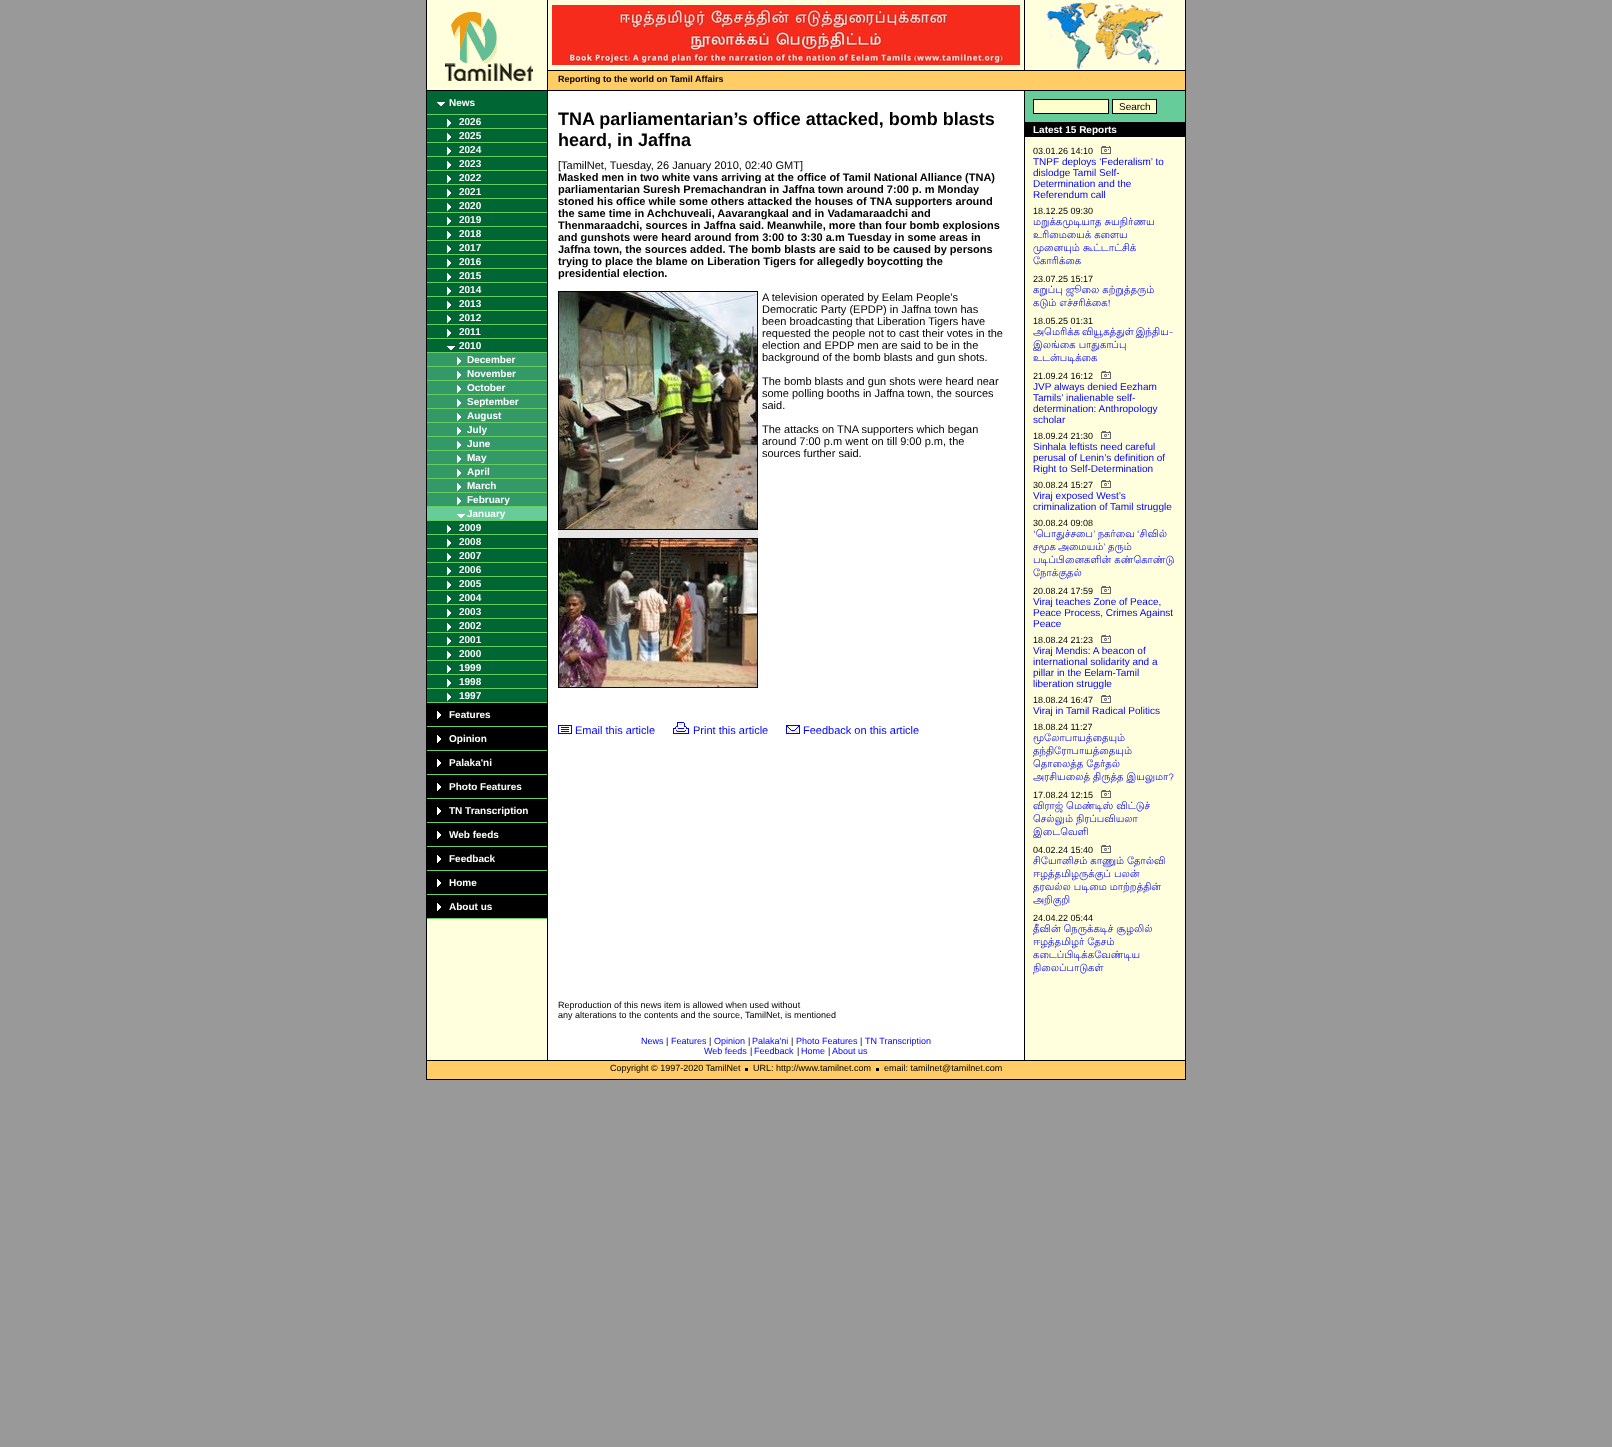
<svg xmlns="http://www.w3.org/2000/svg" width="1612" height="1447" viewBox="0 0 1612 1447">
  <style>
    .t1 { font: bold 9px Liberation Sans; fill: #000; }
    .t2 { font: bold 10px Liberation Sans; fill: #fff; }
    .t3 { font: bold 18px Liberation Sans; fill: #000; }
    .t4 { font: 11px Liberation Sans; fill: #000; }
    .t5 { font: bold 11px Liberation Sans; fill: #000; }
    .t6 { font: 11px Liberation Sans; fill: #00f; }
    .t7 { font: 10px Liberation Sans; fill: #000; }
    .t8 { font: 9px Liberation Sans; fill: #000; }
    .t9 { font: 10px Liberation Sans; fill: #00f; }
    .t10 { font: 10px Lohit Tamil; fill: #00f; }
    .t11 { font: 9px Liberation Sans; fill: #00f; }
  </style>
  <rect width="100%" height="100%" fill="#999"/>
  <rect x="427" y="0" width="758" height="1060" fill="#ffd"/>
  <rect x="1185" y="0" width="1" height="1080" fill="#000"/>
  <rect x="426" y="1079" width="760" height="1" fill="#000"/>
  <rect x="426" y="0" width="1" height="1080" fill="#000"/>
  <rect x="427" y="90" width="758" height="1" fill="#000"/>
  <rect x="547" y="0" width="1" height="90" fill="#000"/>
  <image x="445" y="12" width="88" height="69" href="images/1.png"/>
  <rect x="548" y="70" width="637" height="1" fill="#000"/>
  <rect x="1024" y="0" width="1" height="70" fill="#000"/>
  <image x="552" y="5" width="468" height="60" href="images/2.png"/>
  <image x="1045" y="2" width="119" height="68" href="images/3.png"/>
  <rect x="548" y="71" width="637" height="19" fill="#fc6"/>
  <text x="558" y="82" class="t1">Reporting to the world on Tamil Affairs</text>
  <rect x="427" y="91" width="120" height="23" fill="#063"/>
  <image x="437" y="102" width="8" height="4" href="images/4.png"/>
  <rect x="427" y="114" width="120" height="1" fill="#6c6"/>
  <text x="449" y="106" class="t2">News</text>
  <rect x="427" y="115" width="120" height="13" fill="#063"/>
  <image x="447" y="119" width="4" height="8" href="images/5.png"/>
  <rect x="427" y="128" width="120" height="1" fill="#6c6"/>
  <text x="459" y="125" class="t2">2026</text>
  <rect x="427" y="129" width="120" height="13" fill="#063"/>
  <image x="447" y="133" width="4" height="8" href="images/5.png"/>
  <rect x="427" y="142" width="120" height="1" fill="#6c6"/>
  <text x="459" y="139" class="t2">2025</text>
  <rect x="427" y="143" width="120" height="13" fill="#063"/>
  <image x="447" y="147" width="4" height="8" href="images/5.png"/>
  <rect x="427" y="156" width="120" height="1" fill="#6c6"/>
  <text x="459" y="153" class="t2">2024</text>
  <rect x="427" y="157" width="120" height="13" fill="#063"/>
  <image x="447" y="161" width="4" height="8" href="images/5.png"/>
  <rect x="427" y="170" width="120" height="1" fill="#6c6"/>
  <text x="459" y="167" class="t2">2023</text>
  <rect x="427" y="171" width="120" height="13" fill="#063"/>
  <image x="447" y="175" width="4" height="8" href="images/5.png"/>
  <rect x="427" y="184" width="120" height="1" fill="#6c6"/>
  <text x="459" y="181" class="t2">2022</text>
  <rect x="427" y="185" width="120" height="13" fill="#063"/>
  <image x="447" y="189" width="4" height="8" href="images/5.png"/>
  <rect x="427" y="198" width="120" height="1" fill="#6c6"/>
  <text x="459" y="195" class="t2">2021</text>
  <rect x="427" y="199" width="120" height="13" fill="#063"/>
  <image x="447" y="203" width="4" height="8" href="images/5.png"/>
  <rect x="427" y="212" width="120" height="1" fill="#6c6"/>
  <text x="459" y="209" class="t2">2020</text>
  <rect x="427" y="213" width="120" height="13" fill="#063"/>
  <image x="447" y="217" width="4" height="8" href="images/5.png"/>
  <rect x="427" y="226" width="120" height="1" fill="#6c6"/>
  <text x="459" y="223" class="t2">2019</text>
  <rect x="427" y="227" width="120" height="13" fill="#063"/>
  <image x="447" y="231" width="4" height="8" href="images/5.png"/>
  <rect x="427" y="240" width="120" height="1" fill="#6c6"/>
  <text x="459" y="237" class="t2">2018</text>
  <rect x="427" y="241" width="120" height="13" fill="#063"/>
  <image x="447" y="245" width="4" height="8" href="images/5.png"/>
  <rect x="427" y="254" width="120" height="1" fill="#6c6"/>
  <text x="459" y="251" class="t2">2017</text>
  <rect x="427" y="255" width="120" height="13" fill="#063"/>
  <image x="447" y="259" width="4" height="8" href="images/5.png"/>
  <rect x="427" y="268" width="120" height="1" fill="#6c6"/>
  <text x="459" y="265" class="t2">2016</text>
  <rect x="427" y="269" width="120" height="13" fill="#063"/>
  <image x="447" y="273" width="4" height="8" href="images/5.png"/>
  <rect x="427" y="282" width="120" height="1" fill="#6c6"/>
  <text x="459" y="279" class="t2">2015</text>
  <rect x="427" y="283" width="120" height="13" fill="#063"/>
  <image x="447" y="287" width="4" height="8" href="images/5.png"/>
  <rect x="427" y="296" width="120" height="1" fill="#6c6"/>
  <text x="459" y="293" class="t2">2014</text>
  <rect x="427" y="297" width="120" height="13" fill="#063"/>
  <image x="447" y="301" width="4" height="8" href="images/5.png"/>
  <rect x="427" y="310" width="120" height="1" fill="#6c6"/>
  <text x="459" y="307" class="t2">2013</text>
  <rect x="427" y="311" width="120" height="13" fill="#063"/>
  <image x="447" y="315" width="4" height="8" href="images/5.png"/>
  <rect x="427" y="324" width="120" height="1" fill="#6c6"/>
  <text x="459" y="321" class="t2">2012</text>
  <rect x="427" y="325" width="120" height="13" fill="#063"/>
  <image x="447" y="329" width="4" height="8" href="images/5.png"/>
  <rect x="427" y="338" width="120" height="1" fill="#6c6"/>
  <text x="459" y="335" class="t2">2011</text>
  <rect x="427" y="339" width="120" height="13" fill="#063"/>
  <image x="447" y="346" width="8" height="4" href="images/4.png"/>
  <rect x="427" y="352" width="120" height="1" fill="#6c6"/>
  <text x="459" y="349" class="t2">2010</text>
  <rect x="427" y="353" width="120" height="13" fill="#396"/>
  <image x="457" y="357" width="4" height="8" href="images/6.png"/>
  <rect x="427" y="366" width="120" height="1" fill="#6c6"/>
  <text x="467" y="363" class="t2">December</text>
  <rect x="427" y="367" width="120" height="13" fill="#396"/>
  <image x="457" y="371" width="4" height="8" href="images/6.png"/>
  <rect x="427" y="380" width="120" height="1" fill="#6c6"/>
  <text x="467" y="377" class="t2">November</text>
  <rect x="427" y="381" width="120" height="13" fill="#396"/>
  <image x="457" y="385" width="4" height="8" href="images/6.png"/>
  <rect x="427" y="394" width="120" height="1" fill="#6c6"/>
  <text x="467" y="391" class="t2">October</text>
  <rect x="427" y="395" width="120" height="13" fill="#396"/>
  <image x="457" y="399" width="4" height="8" href="images/6.png"/>
  <rect x="427" y="408" width="120" height="1" fill="#6c6"/>
  <text x="467" y="405" class="t2">September</text>
  <rect x="427" y="409" width="120" height="13" fill="#396"/>
  <image x="457" y="413" width="4" height="8" href="images/6.png"/>
  <rect x="427" y="422" width="120" height="1" fill="#6c6"/>
  <text x="467" y="419" class="t2">August</text>
  <rect x="427" y="423" width="120" height="13" fill="#396"/>
  <image x="457" y="427" width="4" height="8" href="images/6.png"/>
  <rect x="427" y="436" width="120" height="1" fill="#6c6"/>
  <text x="467" y="433" class="t2">July</text>
  <rect x="427" y="437" width="120" height="13" fill="#396"/>
  <image x="457" y="441" width="4" height="8" href="images/6.png"/>
  <rect x="427" y="450" width="120" height="1" fill="#6c6"/>
  <text x="467" y="447" class="t2">June</text>
  <rect x="427" y="451" width="120" height="13" fill="#396"/>
  <image x="457" y="455" width="4" height="8" href="images/6.png"/>
  <rect x="427" y="464" width="120" height="1" fill="#6c6"/>
  <text x="467" y="461" class="t2">May</text>
  <rect x="427" y="465" width="120" height="13" fill="#396"/>
  <image x="457" y="469" width="4" height="8" href="images/6.png"/>
  <rect x="427" y="478" width="120" height="1" fill="#6c6"/>
  <text x="467" y="475" class="t2">April</text>
  <rect x="427" y="479" width="120" height="13" fill="#396"/>
  <image x="457" y="483" width="4" height="8" href="images/6.png"/>
  <rect x="427" y="492" width="120" height="1" fill="#6c6"/>
  <text x="467" y="489" class="t2">March</text>
  <rect x="427" y="493" width="120" height="13" fill="#396"/>
  <image x="457" y="497" width="4" height="8" href="images/6.png"/>
  <rect x="427" y="506" width="120" height="1" fill="#6c6"/>
  <text x="467" y="503" class="t2">February</text>
  <rect x="427" y="507" width="120" height="13" fill="#6c9"/>
  <image x="457" y="514" width="8" height="4" href="images/7.png"/>
  <rect x="427" y="520" width="120" height="1" fill="#6c6"/>
  <text x="467" y="517" class="t2">January</text>
  <rect x="427" y="521" width="120" height="13" fill="#063"/>
  <image x="447" y="525" width="4" height="8" href="images/5.png"/>
  <rect x="427" y="534" width="120" height="1" fill="#6c6"/>
  <text x="459" y="531" class="t2">2009</text>
  <rect x="427" y="535" width="120" height="13" fill="#063"/>
  <image x="447" y="539" width="4" height="8" href="images/5.png"/>
  <rect x="427" y="548" width="120" height="1" fill="#6c6"/>
  <text x="459" y="545" class="t2">2008</text>
  <rect x="427" y="549" width="120" height="13" fill="#063"/>
  <image x="447" y="553" width="4" height="8" href="images/5.png"/>
  <rect x="427" y="562" width="120" height="1" fill="#6c6"/>
  <text x="459" y="559" class="t2">2007</text>
  <rect x="427" y="563" width="120" height="13" fill="#063"/>
  <image x="447" y="567" width="4" height="8" href="images/5.png"/>
  <rect x="427" y="576" width="120" height="1" fill="#6c6"/>
  <text x="459" y="573" class="t2">2006</text>
  <rect x="427" y="577" width="120" height="13" fill="#063"/>
  <image x="447" y="581" width="4" height="8" href="images/5.png"/>
  <rect x="427" y="590" width="120" height="1" fill="#6c6"/>
  <text x="459" y="587" class="t2">2005</text>
  <rect x="427" y="591" width="120" height="13" fill="#063"/>
  <image x="447" y="595" width="4" height="8" href="images/5.png"/>
  <rect x="427" y="604" width="120" height="1" fill="#6c6"/>
  <text x="459" y="601" class="t2">2004</text>
  <rect x="427" y="605" width="120" height="13" fill="#063"/>
  <image x="447" y="609" width="4" height="8" href="images/5.png"/>
  <rect x="427" y="618" width="120" height="1" fill="#6c6"/>
  <text x="459" y="615" class="t2">2003</text>
  <rect x="427" y="619" width="120" height="13" fill="#063"/>
  <image x="447" y="623" width="4" height="8" href="images/5.png"/>
  <rect x="427" y="632" width="120" height="1" fill="#6c6"/>
  <text x="459" y="629" class="t2">2002</text>
  <rect x="427" y="633" width="120" height="13" fill="#063"/>
  <image x="447" y="637" width="4" height="8" href="images/5.png"/>
  <rect x="427" y="646" width="120" height="1" fill="#6c6"/>
  <text x="459" y="643" class="t2">2001</text>
  <rect x="427" y="647" width="120" height="13" fill="#063"/>
  <image x="447" y="651" width="4" height="8" href="images/5.png"/>
  <rect x="427" y="660" width="120" height="1" fill="#6c6"/>
  <text x="459" y="657" class="t2">2000</text>
  <rect x="427" y="661" width="120" height="13" fill="#063"/>
  <image x="447" y="665" width="4" height="8" href="images/5.png"/>
  <rect x="427" y="674" width="120" height="1" fill="#6c6"/>
  <text x="459" y="671" class="t2">1999</text>
  <rect x="427" y="675" width="120" height="13" fill="#063"/>
  <image x="447" y="679" width="4" height="8" href="images/5.png"/>
  <rect x="427" y="688" width="120" height="1" fill="#6c6"/>
  <text x="459" y="685" class="t2">1998</text>
  <rect x="427" y="689" width="120" height="13" fill="#063"/>
  <image x="447" y="693" width="4" height="8" href="images/5.png"/>
  <rect x="427" y="702" width="120" height="1" fill="#6c6"/>
  <text x="459" y="699" class="t2">1997</text>
  <rect x="427" y="703" width="120" height="23" fill="#000"/>
  <image x="437" y="711" width="4" height="8" href="images/8.png"/>
  <rect x="427" y="726" width="120" height="1" fill="#6c6"/>
  <text x="449" y="718" class="t2">Features</text>
  <rect x="427" y="727" width="120" height="23" fill="#000"/>
  <image x="437" y="735" width="4" height="8" href="images/8.png"/>
  <rect x="427" y="750" width="120" height="1" fill="#6c6"/>
  <text x="449" y="742" class="t2">Opinion</text>
  <rect x="427" y="751" width="120" height="23" fill="#000"/>
  <image x="437" y="759" width="4" height="8" href="images/8.png"/>
  <rect x="427" y="774" width="120" height="1" fill="#6c6"/>
  <text x="449" y="766" class="t2">Palaka'ni</text>
  <rect x="427" y="775" width="120" height="23" fill="#000"/>
  <image x="437" y="783" width="4" height="8" href="images/8.png"/>
  <rect x="427" y="798" width="120" height="1" fill="#6c6"/>
  <text x="449" y="790" class="t2">Photo Features</text>
  <rect x="427" y="799" width="120" height="23" fill="#000"/>
  <image x="437" y="807" width="4" height="8" href="images/8.png"/>
  <rect x="427" y="822" width="120" height="1" fill="#6c6"/>
  <text x="449" y="814" class="t2">TN Transcription</text>
  <rect x="427" y="823" width="120" height="23" fill="#000"/>
  <image x="437" y="831" width="4" height="8" href="images/8.png"/>
  <rect x="427" y="846" width="120" height="1" fill="#6c6"/>
  <text x="449" y="838" class="t2">Web feeds</text>
  <rect x="427" y="847" width="120" height="23" fill="#000"/>
  <image x="437" y="855" width="4" height="8" href="images/8.png"/>
  <rect x="427" y="870" width="120" height="1" fill="#6c6"/>
  <text x="449" y="862" class="t2">Feedback</text>
  <rect x="427" y="871" width="120" height="23" fill="#000"/>
  <image x="437" y="879" width="4" height="8" href="images/8.png"/>
  <rect x="427" y="894" width="120" height="1" fill="#6c6"/>
  <text x="449" y="886" class="t2">Home</text>
  <rect x="427" y="895" width="120" height="23" fill="#000"/>
  <image x="437" y="903" width="4" height="8" href="images/8.png"/>
  <rect x="427" y="918" width="120" height="1" fill="#6c6"/>
  <text x="449" y="910" class="t2">About us</text>
  <rect x="548" y="91" width="476" height="969" fill="#fff"/>
  <rect x="1024" y="91" width="1" height="969" fill="#000"/>
  <rect x="547" y="91" width="1" height="969" fill="#000"/>
  <text x="558" y="125" class="t3">TNA parliamentarian’s office attacked, bomb blasts</text>
  <text x="558" y="146" class="t3">heard, in Jaffna</text>
  <text x="558" y="169" class="t4">[TamilNet, Tuesday, 26 January 2010, 02:40 GMT]</text>
  <text x="558" y="181" class="t5">Masked men in two white vans arriving at the office of Tamil National Alliance (TNA)</text>
  <text x="558" y="193" class="t5">parliamentarian Suresh Premachandran in Jaffna town around 7:00 p. m Monday</text>
  <text x="558" y="205" class="t5">stoned his office while some others attacked the houses of TNA supporters around</text>
  <text x="558" y="217" class="t5">the same time in Achchuveali, Aavarangkaal and in Vadamaraadchi and</text>
  <text x="558" y="229" class="t5">Thenmaraadchi, sources in Jaffna said. Meanwhile, more than four bomb explosions</text>
  <text x="558" y="241" class="t5">and gunshots were heard around from 3:00 to 3:30 a.m Tuesday in some areas in</text>
  <text x="558" y="253" class="t5">Jaffna town, the sources added. The bomb blasts are said to be caused by persons</text>
  <text x="558" y="265" class="t5">trying to place the blame on Liberation Tigers for allegedly boycotting the</text>
  <text x="558" y="277" class="t5">presidential election.</text>
  <image x="558" y="291" width="200" height="239" href="images/9.png"/>
  <rect x="558" y="530" width="200" height="8" fill="#e6e6e6"/>
  <image x="558" y="538" width="200" height="150" href="images/10.png"/>
  <text x="762" y="301" class="t4">A television operated by Eelam People’s</text>
  <text x="762" y="313" class="t4">Democratic Party (EPDP) in Jaffna town has</text>
  <text x="762" y="325" class="t4">been broadcasting that Liberation Tigers have</text>
  <text x="762" y="337" class="t4">requested the people not to cast their votes in the</text>
  <text x="762" y="349" class="t4">election and EPDP men are said to be in the</text>
  <text x="762" y="361" class="t4">background of the bomb blasts and gun shots.</text>
  <text x="762" y="385" class="t4">The bomb blasts and gun shots were heard near</text>
  <text x="762" y="397" class="t4">some polling booths in Jaffna town, the sources</text>
  <text x="762" y="409" class="t4">said.</text>
  <text x="762" y="433" class="t4">The attacks on TNA supporters which began</text>
  <text x="762" y="445" class="t4">around 7:00 p.m went on till 9:00 p.m, the</text>
  <text x="762" y="457" class="t4">sources further said.</text>
  <image x="558" y="725" width="14" height="9" href="images/11.png"/>
  <text x="575" y="734" class="t6">Email this article</text>
  <image x="673" y="722" width="16" height="12" href="images/12.png"/>
  <text x="693" y="734" class="t6">Print this article</text>
  <image x="786" y="725" width="14" height="9" href="images/13.png"/>
  <text x="803" y="734" class="t6">Feedback on this article</text>
  <rect x="1025" y="91" width="160" height="31" fill="#6c9"/>
  <rect x="1025" y="122" width="160" height="15" fill="#000"/>
  <rect x="1033.5" y="99.5" width="75" height="14" fill="#ffc" stroke="#000"/>
  <rect x="1112.5" y="99.5" width="44" height="14" fill="#ffc" stroke="#000"/>
  <text x="1119" y="110" class="t7">Search</text>
  <text x="1033" y="133" class="t2">Latest 15 Reports</text>
  <text x="1033" y="154" class="t8">03.01.26 14:10</text>
  <image x="1101" y="146" width="10" height="8" href="images/14.png"/>
  <text x="1033" y="165" class="t9">TNPF deploys ‘Federalism’ to</text>
  <text x="1033" y="176" class="t9">dislodge Tamil Self-</text>
  <text x="1033" y="187" class="t9">Determination and the</text>
  <text x="1033" y="198" class="t9">Referendum call</text>
  <text x="1033" y="214" class="t8">18.12.25 09:30</text>
  <text x="1033" y="225" class="t10">மறுக்கமுடியாத சுயநிர்ணய</text>
  <text x="1033" y="238" class="t10">உரிமையைக் களைய</text>
  <text x="1033" y="251" class="t10">முனையும் கூட்டாட்சிக்</text>
  <text x="1033" y="264" class="t10">கோரிக்கை</text>
  <text x="1033" y="282" class="t8">23.07.25 15:17</text>
  <text x="1033" y="293" class="t10">கறுப்பு ஜூலை கற்றுத்தரும்</text>
  <text x="1033" y="306" class="t10">கடும் எச்சரிக்கை!</text>
  <text x="1033" y="324" class="t8">18.05.25 01:31</text>
  <text x="1033" y="335" word-spacing="-1" class="t10">அமெரிக்க வியூகத்துள் இந்திய-</text>
  <text x="1033" y="348" class="t10">இலங்கை பாதுகாப்பு</text>
  <text x="1033" y="361" class="t10">உடன்படிக்கை</text>
  <text x="1033" y="379" class="t8">21.09.24 16:12</text>
  <image x="1101" y="371" width="10" height="8" href="images/14.png"/>
  <text x="1033" y="390" class="t9">JVP always denied Eezham</text>
  <text x="1033" y="401" class="t9">Tamils’ inalienable self-</text>
  <text x="1033" y="412" class="t9">determination: Anthropology</text>
  <text x="1033" y="423" class="t9">scholar</text>
  <text x="1033" y="439" class="t8">18.09.24 21:30</text>
  <image x="1101" y="431" width="10" height="8" href="images/14.png"/>
  <text x="1033" y="450" class="t9">Sinhala leftists need careful</text>
  <text x="1033" y="461" class="t9">perusal of Lenin’s definition of</text>
  <text x="1033" y="472" class="t9">Right to Self-Determination</text>
  <text x="1033" y="488" class="t8">30.08.24 15:27</text>
  <image x="1101" y="480" width="10" height="8" href="images/14.png"/>
  <text x="1033" y="499" class="t9">Viraj exposed West’s</text>
  <text x="1033" y="510" class="t9">criminalization of Tamil struggle</text>
  <text x="1033" y="526" class="t8">30.08.24 09:08</text>
  <text x="1033" y="537" word-spacing="-1" class="t10">‘பொதுச்சபை’ நகர்வை ‘சிவில்</text>
  <text x="1033" y="550" word-spacing="-1" class="t10">சமூக அமையம்’ தரும்</text>
  <text x="1033" y="563" class="t10">படிப்பினைகளின் கண்கொண்டு</text>
  <text x="1033" y="576" class="t10">நோக்குதல்</text>
  <text x="1033" y="594" class="t8">20.08.24 17:59</text>
  <image x="1101" y="586" width="10" height="8" href="images/14.png"/>
  <text x="1033" y="605" class="t9">Viraj teaches Zone of Peace,</text>
  <text x="1033" y="616" class="t9">Peace Process, Crimes Against</text>
  <text x="1033" y="627" class="t9">Peace</text>
  <text x="1033" y="643" class="t8">18.08.24 21:23</text>
  <image x="1101" y="635" width="10" height="8" href="images/14.png"/>
  <text x="1033" y="654" class="t9">Viraj Mendis: A beacon of</text>
  <text x="1033" y="665" class="t9">international solidarity and a</text>
  <text x="1033" y="676" class="t9">pillar in the Eelam-Tamil</text>
  <text x="1033" y="687" class="t9">liberation struggle</text>
  <text x="1033" y="703" class="t8">18.08.24 16:47</text>
  <image x="1101" y="695" width="10" height="8" href="images/14.png"/>
  <text x="1033" y="714" class="t9">Viraj in Tamil Radical Politics</text>
  <text x="1033" y="730" class="t8">18.08.24 11:27</text>
  <text x="1033" y="741" class="t10">மூலோபாயத்தையும்</text>
  <text x="1033" y="754" class="t10">தந்திரோபாயத்தையும்</text>
  <text x="1033" y="767" class="t10">தொலைத்த தேர்தல்</text>
  <text x="1033" y="780" class="t10">அரசியலைத் திருத்த இயலுமா?</text>
  <text x="1033" y="798" class="t8">17.08.24 12:15</text>
  <image x="1101" y="790" width="10" height="8" href="images/14.png"/>
  <text x="1033" y="809" class="t10">விராஜ் மெண்டிஸ் விட்டுச்</text>
  <text x="1033" y="822" class="t10">செல்லும் நிரப்பவியலா</text>
  <text x="1033" y="835" class="t10">இடைவெளி</text>
  <text x="1033" y="853" class="t8">04.02.24 15:40</text>
  <image x="1101" y="845" width="10" height="8" href="images/14.png"/>
  <text x="1033" y="864" class="t10">சியோனிசம் காணும் தோல்வி</text>
  <text x="1033" y="877" class="t10">ஈழத்தமிழருக்குப் பலன்</text>
  <text x="1033" y="890" class="t10">தரவல்ல படிமை மாற்றத்தின்</text>
  <text x="1033" y="903" class="t10">அறிகுறி</text>
  <text x="1033" y="921" class="t8">24.04.22 05:44</text>
  <text x="1033" y="932" class="t10">தீவின் நெருக்கடிச் சூழலில்</text>
  <text x="1033" y="945" class="t10">ஈழத்தமிழர் தேசம்</text>
  <text x="1033" y="958" class="t10">கடைப்பிடிக்கவேண்டிய</text>
  <text x="1033" y="971" class="t10">நிலைப்பாடுகள்</text>
  <text x="558" y="1008" class="t8">Reproduction of this news item is allowed when used without</text>
  <text x="558" y="1018" class="t8">any alterations to the contents and the source, TamilNet, is mentioned</text>
  <text x="641" y="1044" class="t11">News</text>
  <text x="666" y="1044" class="t8">|</text>
  <text x="671" y="1044" class="t11">Features</text>
  <text x="709" y="1044" class="t8">|</text>
  <text x="714" y="1044" class="t11">Opinion</text>
  <text x="748" y="1044" class="t8">|</text>
  <text x="752" y="1044" class="t11">Palaka'ni</text>
  <text x="791" y="1044" class="t8">|</text>
  <text x="796" y="1044" class="t11">Photo Features</text>
  <text x="860" y="1044" class="t8">|</text>
  <text x="865" y="1044" class="t11">TN Transcription</text>
  <text x="704" y="1054" class="t11">Web feeds</text>
  <text x="750" y="1054" class="t8">|</text>
  <text x="754" y="1054" class="t11">Feedback</text>
  <text x="797" y="1054" class="t8">|</text>
  <text x="801" y="1054" class="t11">Home</text>
  <text x="828" y="1054" class="t8">|</text>
  <text x="832" y="1054" class="t11">About us</text>
  <rect x="427" y="1061" width="758" height="18" fill="#fc6"/>
  <rect x="427" y="1060" width="758" height="1" fill="#000"/>
  <text x="610" y="1071" class="t8">Copyright © 1997-2020 TamilNet</text>
  <rect x="745.5" y="1068.5" width="2" height="2" fill="none" stroke="#000"/>
  <text x="753" y="1071" class="t8">URL: http://www.tamilnet.com</text>
  <rect x="876.5" y="1068.5" width="2" height="2" fill="none" stroke="#000"/>
  <text x="884" y="1071" class="t8">email: tamilnet@tamilnet.com</text>
  <rect x="746" y="1069" width="1" height="1" fill="#000"/>
  <rect x="877" y="1069" width="1" height="1" fill="#000"/>
</svg>
